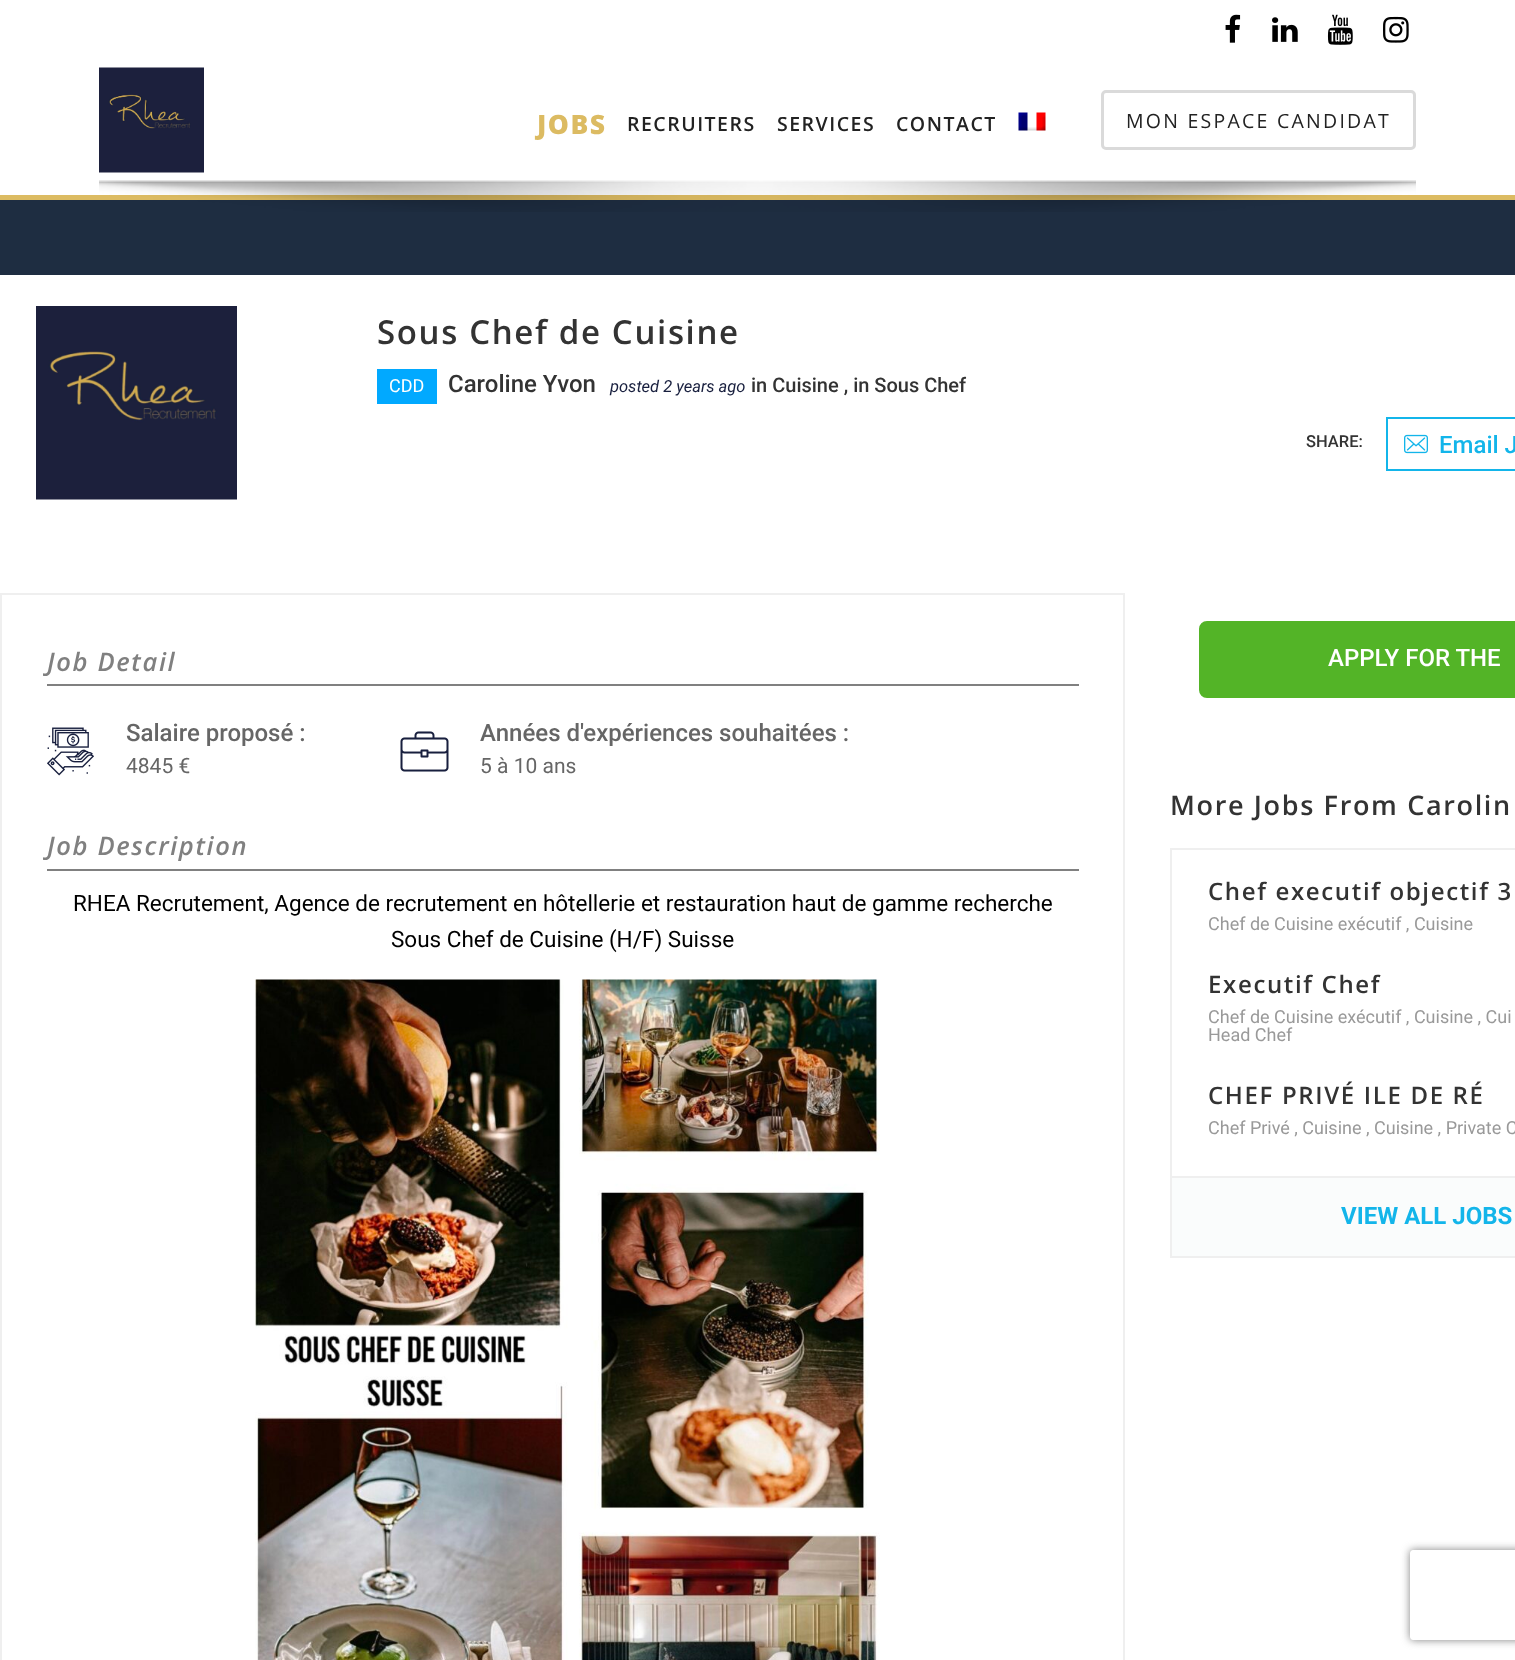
<svg xmlns="http://www.w3.org/2000/svg" width="1515" height="1660" viewBox="0 0 1515 1660">
  <style>
    .t1 { font: 800 26.5px Open Sans; letter-spacing: 1.5px; fill: #dcbb62; }
    .t2 { font: 600 19.5px Open Sans; letter-spacing: 1.5px; fill: #222; }
    .t3 { font: 19.5px Open Sans; letter-spacing: 2.25px; fill: #222; }
    .t4 { font: 600 33px Open Sans; letter-spacing: 1.65px; fill: #333; }
    .t5 { font: 18px Roboto; fill: #fff; }
    .t6 { font: 500 24px Roboto; fill: #333; }
    .t7 { font: italic 16.5px Roboto; fill: #181f3e; }
    .t8 { font: 500 20px Roboto; fill: #333; }
    .t9 { font: 500 16.5px Roboto; fill: #333; }
    .t10 { font: 500 24px Roboto; fill: #13b5ea; }
    .t11 { font: italic 600 25.5px Open Sans; letter-spacing: 1.65px; fill: #808080; }
    .t12 { font: 500 24px Roboto; fill: #666; }
    .t13 { font: 21px Roboto; fill: #666; }
    .t14 { font: 22.5px Roboto; fill: #000; }
    .t15 { font: 500 24px Roboto; fill: #fff; }
    .t16 { font: 600 27px Open Sans; letter-spacing: 1.65px; fill: #333; }
    .t17 { font: 600 24px Open Sans; letter-spacing: 1.65px; fill: #333; }
    .t18 { font: 18px Roboto; fill: #999; }
    .t19 { font: bold 24px Roboto; fill: #13b5ea; }
  </style>
  <defs>
    <clipPath id="clip1"><path d="M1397 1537H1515V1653H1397ZM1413 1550H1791C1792.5 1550 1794 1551.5 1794 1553V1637C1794 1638.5 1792.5 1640 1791 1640H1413C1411.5 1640 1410 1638.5 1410 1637V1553C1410 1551.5 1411.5 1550 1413 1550Z" clip-rule="evenodd"/></clipPath>
  </defs>
  <rect width="100%" height="100%" fill="#fff"/>
  <image x="1225" y="14" width="16" height="29" href="images/1.png"/>
  <image x="1272" y="17" width="26" height="25" href="images/2.png"/>
  <image x="1327" y="14" width="26" height="31" href="images/3.png"/>
  <image x="1383" y="16" width="26" height="27" href="images/4.png"/>
  <image x="99" y="67" width="105" height="106" href="images/5.png"/>
  <text x="537" y="134" class="t1">JOBS</text>
  <text x="627" y="131" class="t2">RECRUITERS</text>
  <text x="777" y="131" class="t2">SERVICES</text>
  <text x="896" y="131" class="t2">CONTACT</text>
  <image x="1018" y="112" width="28" height="19" href="images/6.png"/>
  <rect x="1102.5" y="91.5" width="312" height="57" rx="3.5" fill="none" stroke="#dadada" stroke-width="3"/>
  <text x="1126" y="128" class="t3">MON ESPACE CANDIDAT</text>
  <rect x="0" y="195" width="1515" height="5" fill="#dcbb62"/>
  <rect x="0" y="200" width="1515" height="75" fill="#1e2d41"/>
  <image x="99" y="180" width="1317" height="32" href="images/7.png"/>
  <image x="36" y="306" width="201" height="194" href="images/8.png"/>
  <text x="377" y="344" class="t4">Sous Chef de Cuisine</text>
  <rect x="377" y="369" width="60" height="35" fill="#01a9ff"/>
  <text x="389" y="392" class="t5">CDD</text>
  <text x="448" y="392" class="t6">Caroline Yvon</text>
  <text x="610" y="392" class="t7">posted 2 years ago</text>
  <text x="751" y="392" class="t8">in Cuisine , in Sous Chef</text>
  <text x="1306" y="447" class="t9">SHARE:</text>
  <rect x="1387" y="418" width="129" height="52" fill="none" stroke="#13b5ea" stroke-width="2"/>
  <image x="1404" y="434" width="24" height="20" href="images/9.png"/>
  <text x="1439" y="453" class="t10">Email J</text>
  <rect x="1" y="594" width="1123" height="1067" fill="none" stroke="#efefef" stroke-width="2"/>
  <rect x="47" y="684" width="1032" height="2" fill="#808080"/>
  <text x="47" y="671" class="t11">Job Detail</text>
  <image x="47" y="727" width="47" height="49" href="images/10.png"/>
  <text x="126" y="741" class="t12">Salaire proposé :</text>
  <text x="126" y="773" class="t13">4845 €</text>
  <image x="400" y="731" width="49" height="41" href="images/11.png"/>
  <text x="480" y="741" class="t12">Années d'expériences souhaitées :</text>
  <text x="480" y="773" class="t13">5 à 10 ans</text>
  <rect x="47" y="869" width="1032" height="2" fill="#808080"/>
  <text x="47" y="855" class="t11">Job Description</text>
  <text x="73" y="911" class="t14">RHEA Recrutement, Agence de recrutement en hôtellerie et restauration haut de gamme recherche</text>
  <text x="391" y="947" class="t14">Sous Chef de Cuisine (H/F) Suisse</text>
  <image x="255" y="979" width="625" height="681" href="images/12.png"/>
  <rect x="1200" y="622" width="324" height="75" rx="7" fill="#53b427" stroke="#53b427" stroke-width="2"/>
  <text x="1328" y="666" class="t15">APPLY FOR THE</text>
  <text x="1170" y="815" class="t16">More Jobs From Carolin</text>
  <rect x="1171" y="849" width="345" height="328" fill="none" stroke="#efefef" stroke-width="2"/>
  <text x="1208" y="900" class="t17">Chef executif objectif 3</text>
  <text x="1208" y="930" class="t18">Chef de Cuisine exécutif , Cuisine</text>
  <text x="1208" y="993" class="t17">Executif Chef</text>
  <text x="1208" y="1023" class="t18">Chef de Cuisine exécutif , Cuisine , Cui</text>
  <text x="1208" y="1041" class="t18">Head Chef</text>
  <text x="1208" y="1104" class="t17">CHEF PRIVÉ ILE DE RÉ</text>
  <text x="1208" y="1134" class="t18">Chef Privé , Cuisine , Cuisine , Private C</text>
  <rect x="1172" y="1178" width="343" height="78" fill="#fafcfc"/>
  <rect x="1170" y="1256" width="345" height="2" fill="#efefef"/>
  <rect x="1170" y="1178" width="2" height="79" fill="#efefef"/>
  <text x="1341" y="1224" class="t19">VIEW ALL JOBS</text>
  <g clip-path="url(#clip1)">
    <rect x="1410" y="1550" width="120" height="90" rx="3" fill="#808080" filter="blur(4px)"/>
  </g>
</svg>
